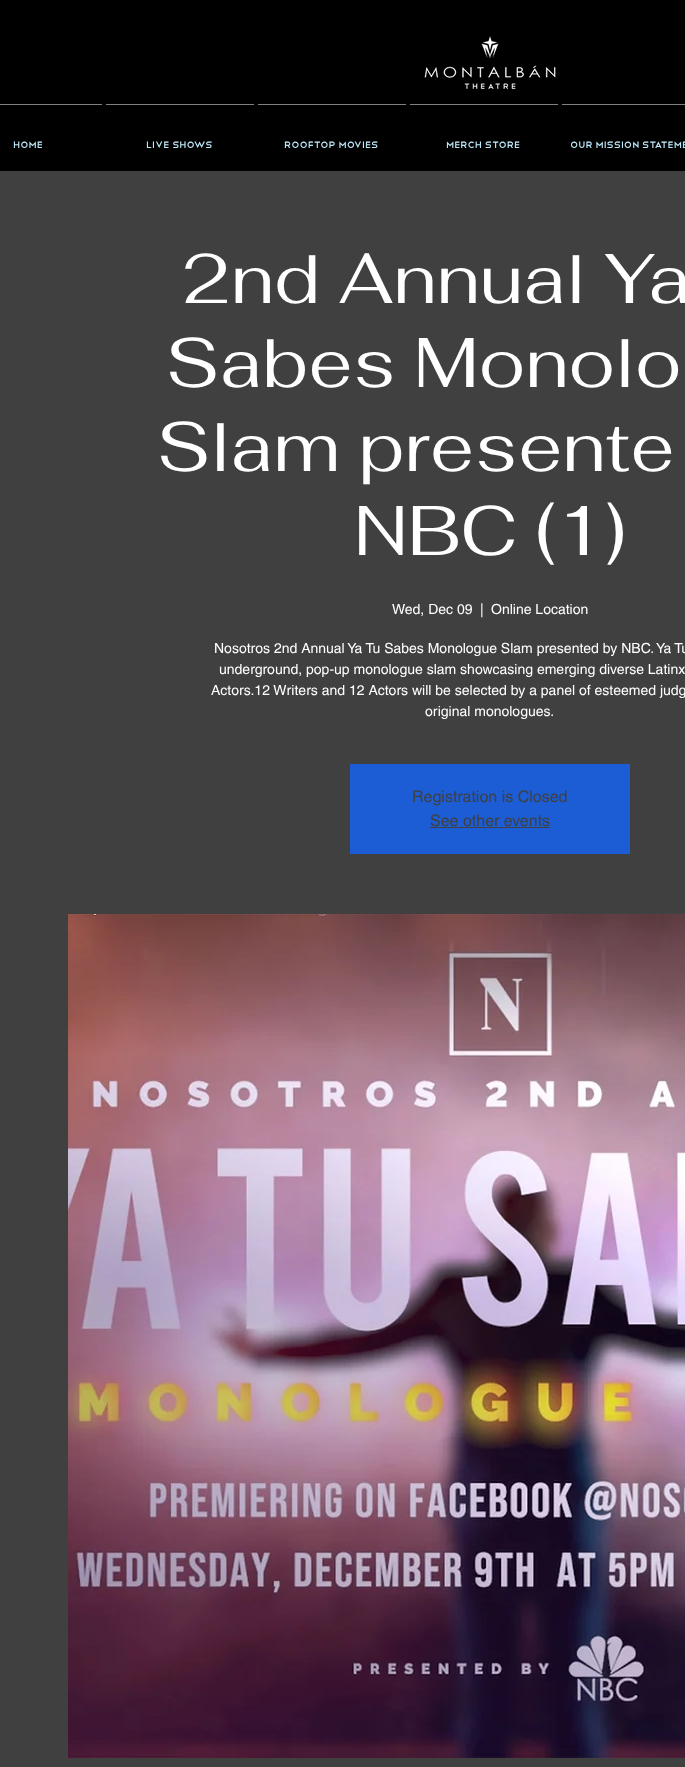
<svg xmlns="http://www.w3.org/2000/svg" width="685" height="1767" viewBox="0 0 685 1767">
  <style>
    .t1 { font: 12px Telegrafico; fill: #bde9fb; }
    .t2 { font: 70px Fahkwang; fill: #fff; }
    .t3 { font: 14px helvetica; fill: #fff; }
    .t4 { font: 16px helvetica; fill: #404040; }
  </style>
  <rect width="100%" height="100%" fill="#000"/>
  <image x="424" y="36" width="132" height="54" href="images/1.png"/>
  <rect x="0" y="104" width="102" height="1" fill="#808080"/>
  <text x="13" y="148" class="t1">Home</text>
  <rect x="106" y="104" width="148" height="1" fill="#808080"/>
  <text x="146" y="148" class="t1">Live Shows</text>
  <rect x="258" y="104" width="148" height="1" fill="#808080"/>
  <text x="284" y="148" class="t1">Rooftop Movies</text>
  <rect x="410" y="104" width="148" height="1" fill="#808080"/>
  <text x="446" y="148" class="t1">Merch Store</text>
  <rect x="562" y="104" width="123" height="1" fill="#808080"/>
  <text x="570" y="148" class="t1">Our Mission Stateme</text>
  <rect x="0" y="171" width="685" height="1596" fill="#404040"/>
  <text x="182" y="303" class="t2">2nd Annual Ya</text>
  <text x="166" y="387" class="t2">Sabes Monolo</text>
  <text x="157" y="471" class="t2">Slam presente</text>
  <text x="354" y="555" class="t2">NBC (1)</text>
  <text x="392" y="614" class="t3">Wed, Dec 09</text>
  <text x="480" y="614" class="t3">|</text>
  <text x="491" y="614" class="t3">Online Location</text>
  <text x="214" y="653" class="t3">Nosotros 2nd Annual Ya Tu Sabes Monologue Slam presented by NBC. Ya Tu</text>
  <text x="219" y="674" class="t3">underground, pop-up monologue slam showcasing emerging diverse Latinx</text>
  <text x="211" y="695" class="t3">Actors.12 Writers and 12 Actors will be selected by a panel of esteemed judg</text>
  <text x="425" y="716" class="t3">original monologues.</text>
  <rect x="350" y="764" width="280" height="90" fill="#1c5cd4"/>
  <text x="412" y="802" class="t4">Registration is Closed</text>
  <text x="430" y="826" class="t4">See other events</text>
  <rect x="430" y="827" width="120" height="1" fill="#404040"/>
  <image x="68" y="914" width="617" height="844" href="images/2.png"/>
</svg>
